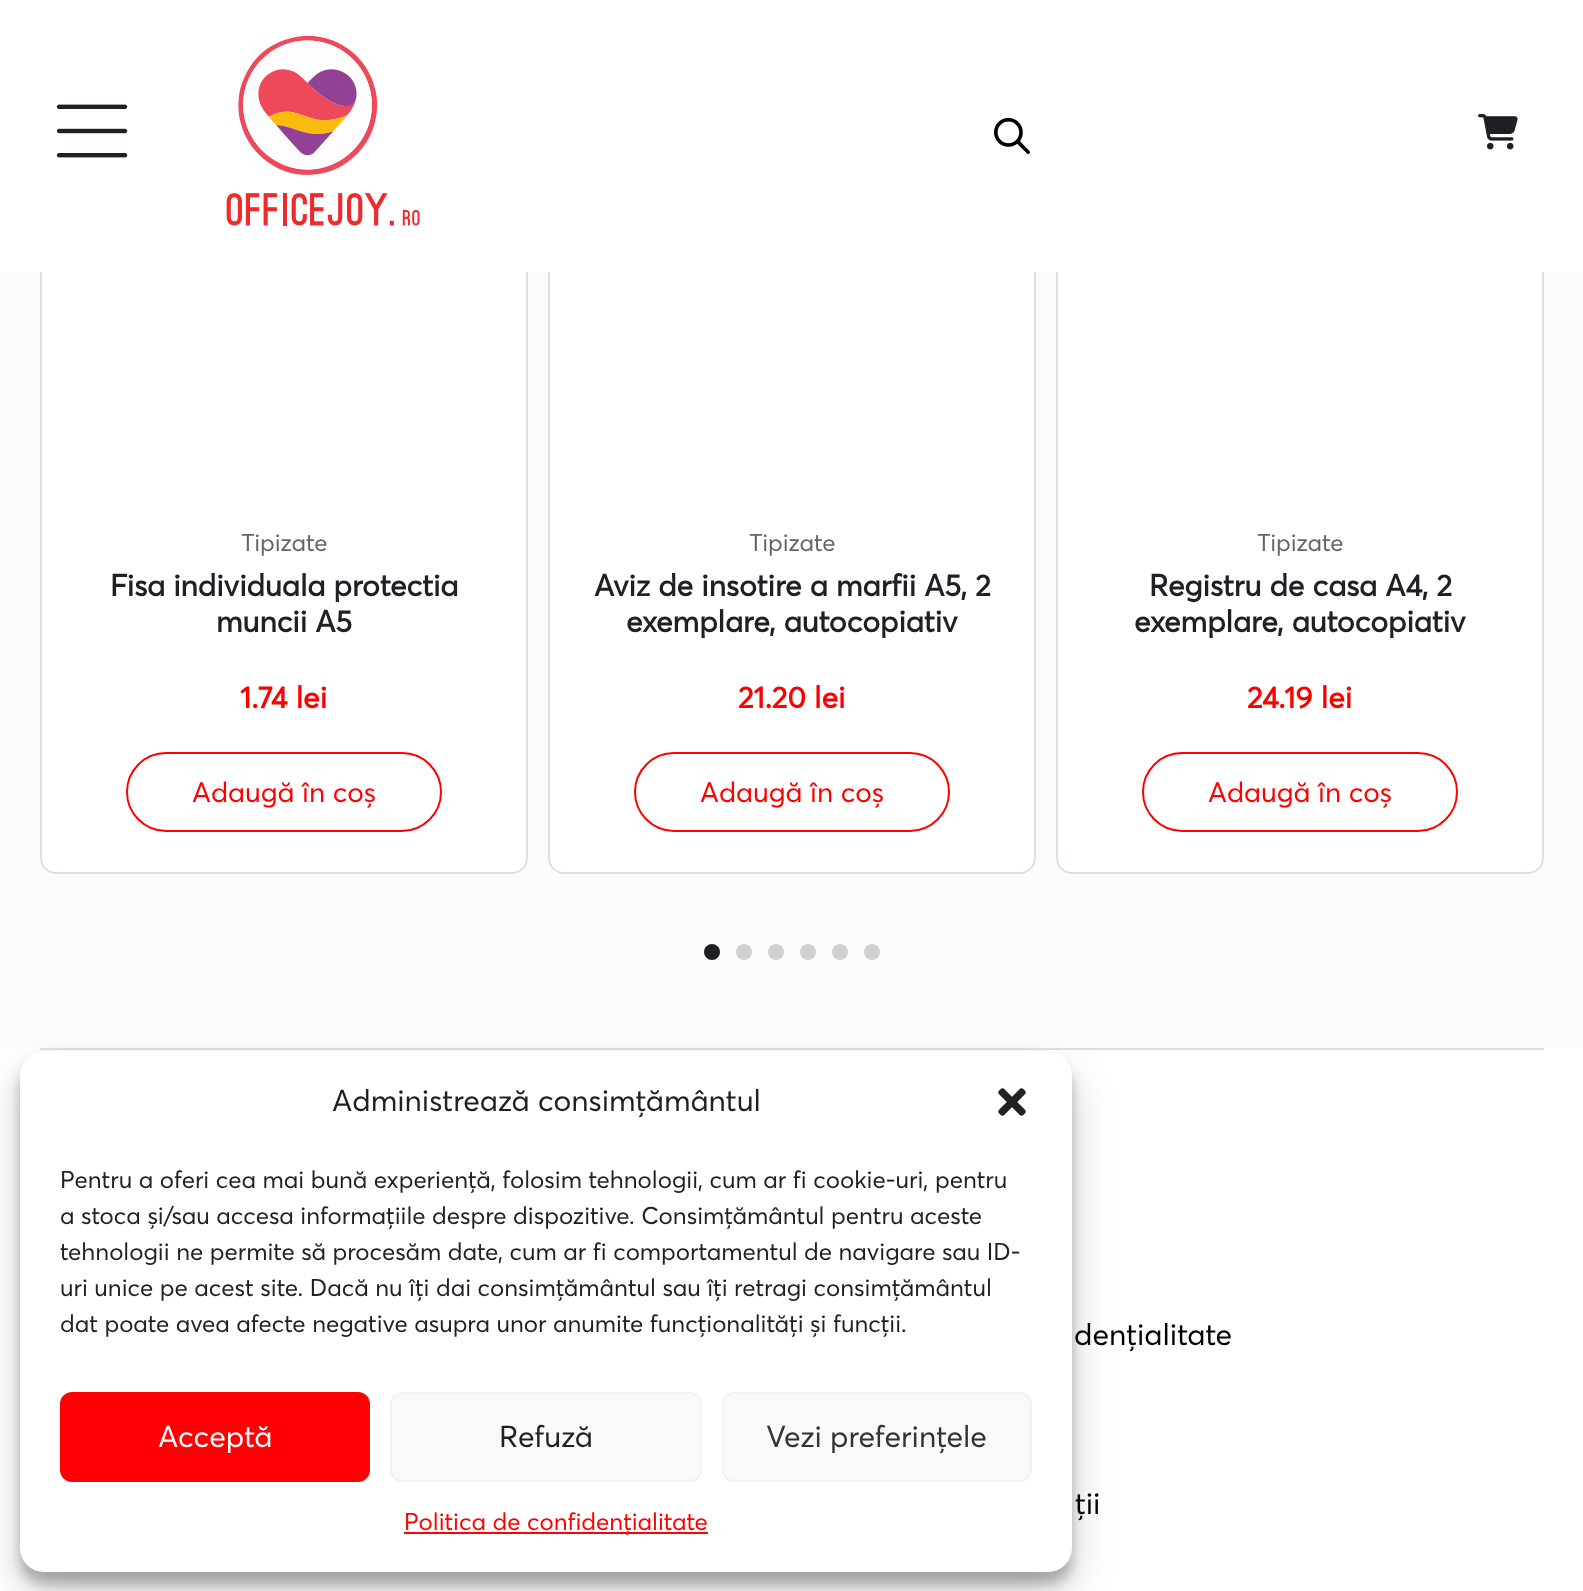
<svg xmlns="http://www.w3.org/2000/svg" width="1583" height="1591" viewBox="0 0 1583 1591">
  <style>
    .t1 { font: 24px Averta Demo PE; fill: #65636d; }
    .t2 { font: bold 30px Averta Demo PE; fill: #211f26; }
    .t3 { font: bold 30px Averta Demo PE; fill: #f00; }
    .t4 { font: 28px Averta Demo PE; fill: #f00; }
    .t5 { font: 30px Averta Demo PE; fill: #211f26; }
    .t6 { font: 24px Averta Demo PE; fill: #211f26; }
    .t7 { font: 30px Averta Demo PE; fill: #fff; }
    .t8 { font: 30px Averta Demo PE; fill: #333; }
    .t9 { font: 24px Averta Demo PE; fill: #f00; }
    .t10 { font: 30px Averta Demo PE; fill: #030303; }
  </style>
  <rect width="100%" height="100%" fill="#fdfcfd"/>
  <rect x="41" y="-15" width="486" height="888" rx="15" fill="#fff" stroke="#dce0e5" stroke-width="2"/>
  <rect x="549" y="-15" width="486" height="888" rx="15" fill="#fff" stroke="#dce0e5" stroke-width="2"/>
  <rect x="1057" y="-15" width="486" height="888" rx="15" fill="#fff" stroke="#dce0e5" stroke-width="2"/>
  <rect x="0" y="0" width="1583" height="272" fill="#fff"/>
  <image x="56" y="104" width="72" height="54" href="images/1.png"/>
  <image x="226" y="35" width="194" height="191" href="images/2.png"/>
  <image x="994" y="118" width="36" height="36" href="images/3.png"/>
  <image x="1478" y="114" width="40" height="36" href="images/4.png"/>
  <text x="241" y="551" class="t1">Tipizate</text>
  <text x="110" y="596" class="t2">Fisa individuala protectia</text>
  <text x="216" y="632" class="t2">muncii A5</text>
  <text x="240" y="708" class="t3">1.74 lei</text>
  <rect x="127" y="753" width="314" height="78" rx="39" fill="none" stroke="#f00" stroke-width="2"/>
  <text x="192" y="802" class="t4">Adaugă în coș</text>
  <text x="749" y="551" class="t1">Tipizate</text>
  <text x="594" y="596" class="t2">Aviz de insotire a marfii A5, 2</text>
  <text x="626" y="632" class="t2">exemplare, autocopiativ</text>
  <text x="738" y="708" class="t3">21.20 lei</text>
  <rect x="635" y="753" width="314" height="78" rx="39" fill="none" stroke="#f00" stroke-width="2"/>
  <text x="700" y="802" class="t4">Adaugă în coș</text>
  <text x="1257" y="551" class="t1">Tipizate</text>
  <text x="1149" y="596" class="t2">Registru de casa A4, 2</text>
  <text x="1134" y="632" class="t2">exemplare, autocopiativ</text>
  <text x="1247" y="708" class="t3">24.19 lei</text>
  <rect x="1143" y="753" width="314" height="78" rx="39" fill="none" stroke="#f00" stroke-width="2"/>
  <text x="1208" y="802" class="t4">Adaugă în coș</text>
  <circle cx="712" cy="952" r="8" fill="#211f26"/>
  <circle cx="744" cy="952" r="8" fill="#d1d0d2"/>
  <circle cx="776" cy="952" r="8" fill="#d1d0d2"/>
  <circle cx="808" cy="952" r="8" fill="#d1d0d2"/>
  <circle cx="840" cy="952" r="8" fill="#d1d0d2"/>
  <circle cx="872" cy="952" r="8" fill="#d1d0d2"/>
  <rect x="0" y="1048" width="1583" height="543" fill="#fff"/>
  <rect x="40" y="1048" width="1504" height="2" fill="#dce0e5"/>
  <rect x="20" y="1064" width="1052" height="520" rx="24" fill="#0000003b" filter="blur(6px)"/>
  <rect x="20" y="1072" width="1052" height="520" rx="24" fill="#00000030" filter="blur(20px)"/>
  <rect x="20" y="1052" width="1052" height="520" rx="24" fill="#fff"/>
  <text x="332" y="1111" class="t5">Administrează consimțământul</text>
  <image x="998" y="1088" width="28" height="28" href="images/5.png"/>
  <text x="60" y="1188" class="t6">Pentru a oferi cea mai bună experiență, folosim tehnologii, cum ar fi cookie-uri, pentru</text>
  <text x="60" y="1224" class="t6">a stoca și/sau accesa informațiile despre dispozitive. Consimțământul pentru aceste</text>
  <text x="60" y="1260" class="t6">tehnologii ne permite să procesăm date, cum ar fi comportamentul de navigare sau ID-</text>
  <text x="60" y="1296" class="t6">uri unice pe acest site. Dacă nu îți dai consimțământul sau îți retragi consimțământul</text>
  <text x="60" y="1332" class="t6">dat poate avea afecte negative asupra unor anumite funcționalități și funcții.</text>
  <rect x="61" y="1393" width="308" height="88" rx="11" fill="#ff0004" stroke="#ff0004" stroke-width="2"/>
  <text x="158" y="1447" class="t7">Acceptă</text>
  <rect x="391" y="1393" width="310" height="88" rx="11" fill="#f9f9f9" stroke="#f2f2f2" stroke-width="2"/>
  <text x="499" y="1447" class="t5">Refuză</text>
  <rect x="723" y="1393" width="308" height="88" rx="11" fill="#f9f9f9" stroke="#f2f2f2" stroke-width="2"/>
  <text x="766" y="1447" class="t8">Vezi preferințele</text>
  <rect x="404" y="1532" width="304" height="2" fill="#ff0004"/>
  <text x="404" y="1530" class="t9">Politica de confidențialitate</text>
  <text x="1074" y="1345" class="t10">dențialitate</text>
  <text x="1075" y="1514" class="t10">ții</text>
</svg>
